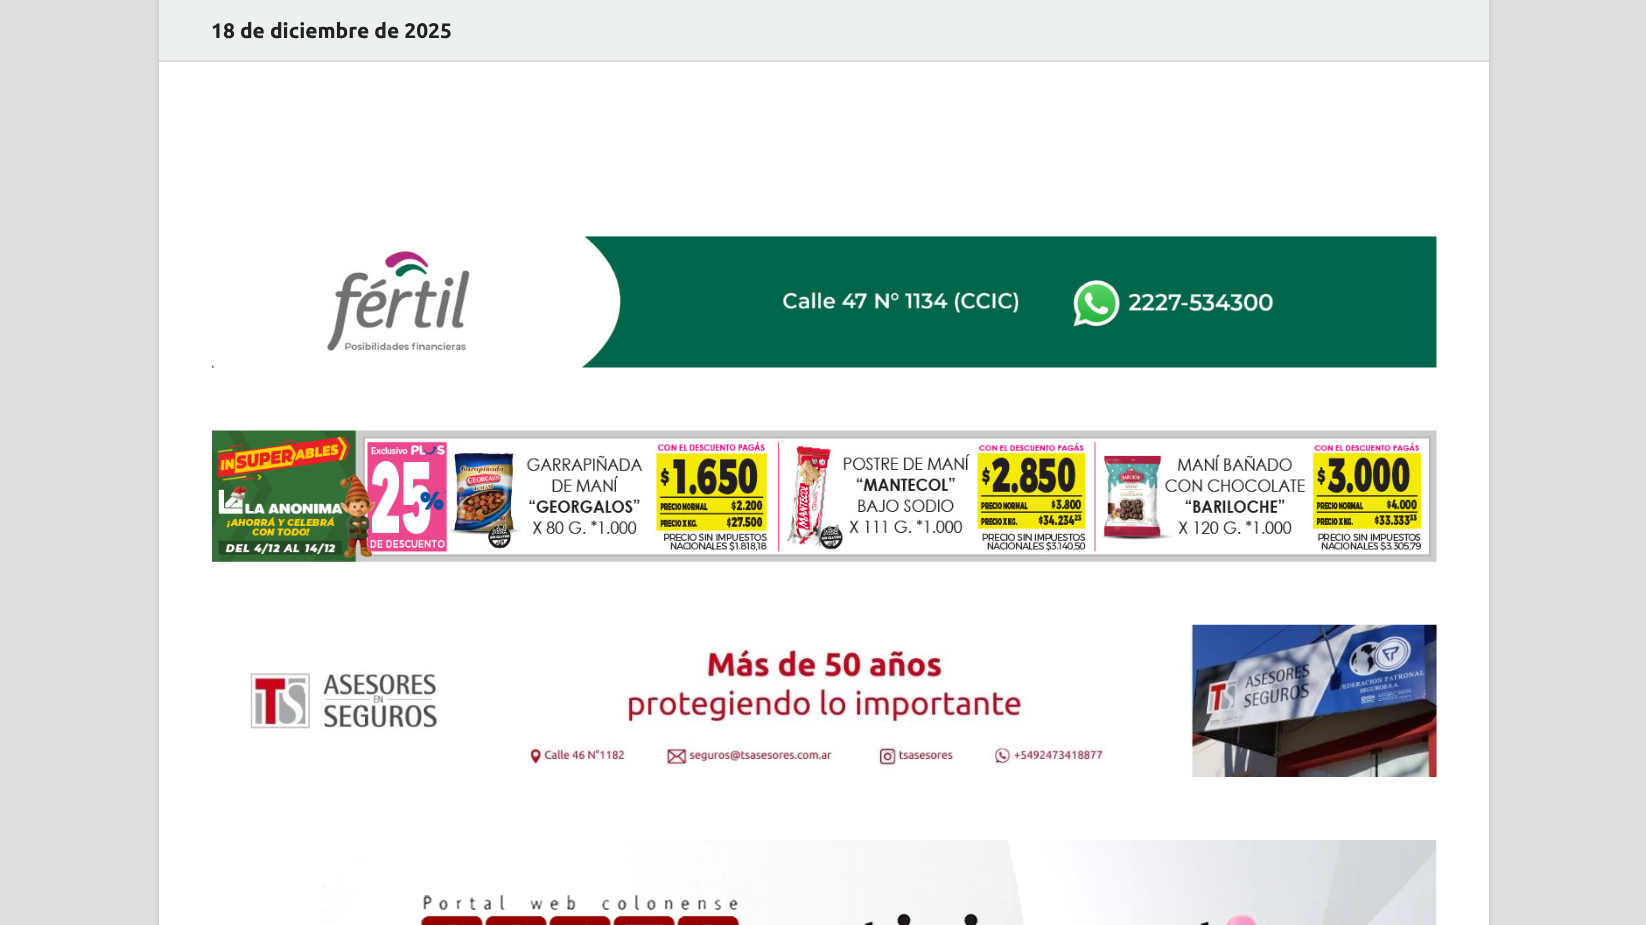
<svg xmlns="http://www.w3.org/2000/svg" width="1646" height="925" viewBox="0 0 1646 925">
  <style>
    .t1 { font: bold 21px Ubuntu; fill: #222; }
  </style>
  <rect width="100%" height="100%" fill="#ddd"/>
  <rect x="159" y="0" width="1330" height="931" fill="#bbb" filter="blur(2px)"/>
  <rect x="159" y="62" width="1330" height="863" fill="#fff"/>
  <rect x="159" y="0" width="1330" height="60" fill="#ecf0f1"/>
  <rect x="159" y="60" width="1330" height="2" fill="#ddd"/>
  <text x="211" y="38" class="t1">18 de diciembre de 2025</text>
  <image x="211" y="236" width="1226" height="132" href="images/1.png"/>
  <image x="211" y="430" width="1226" height="132" href="images/2.png"/>
  <image x="249" y="624" width="1188" height="153" href="images/3.png"/>
  <image x="320" y="840" width="1117" height="85" href="images/4.png"/>
</svg>
